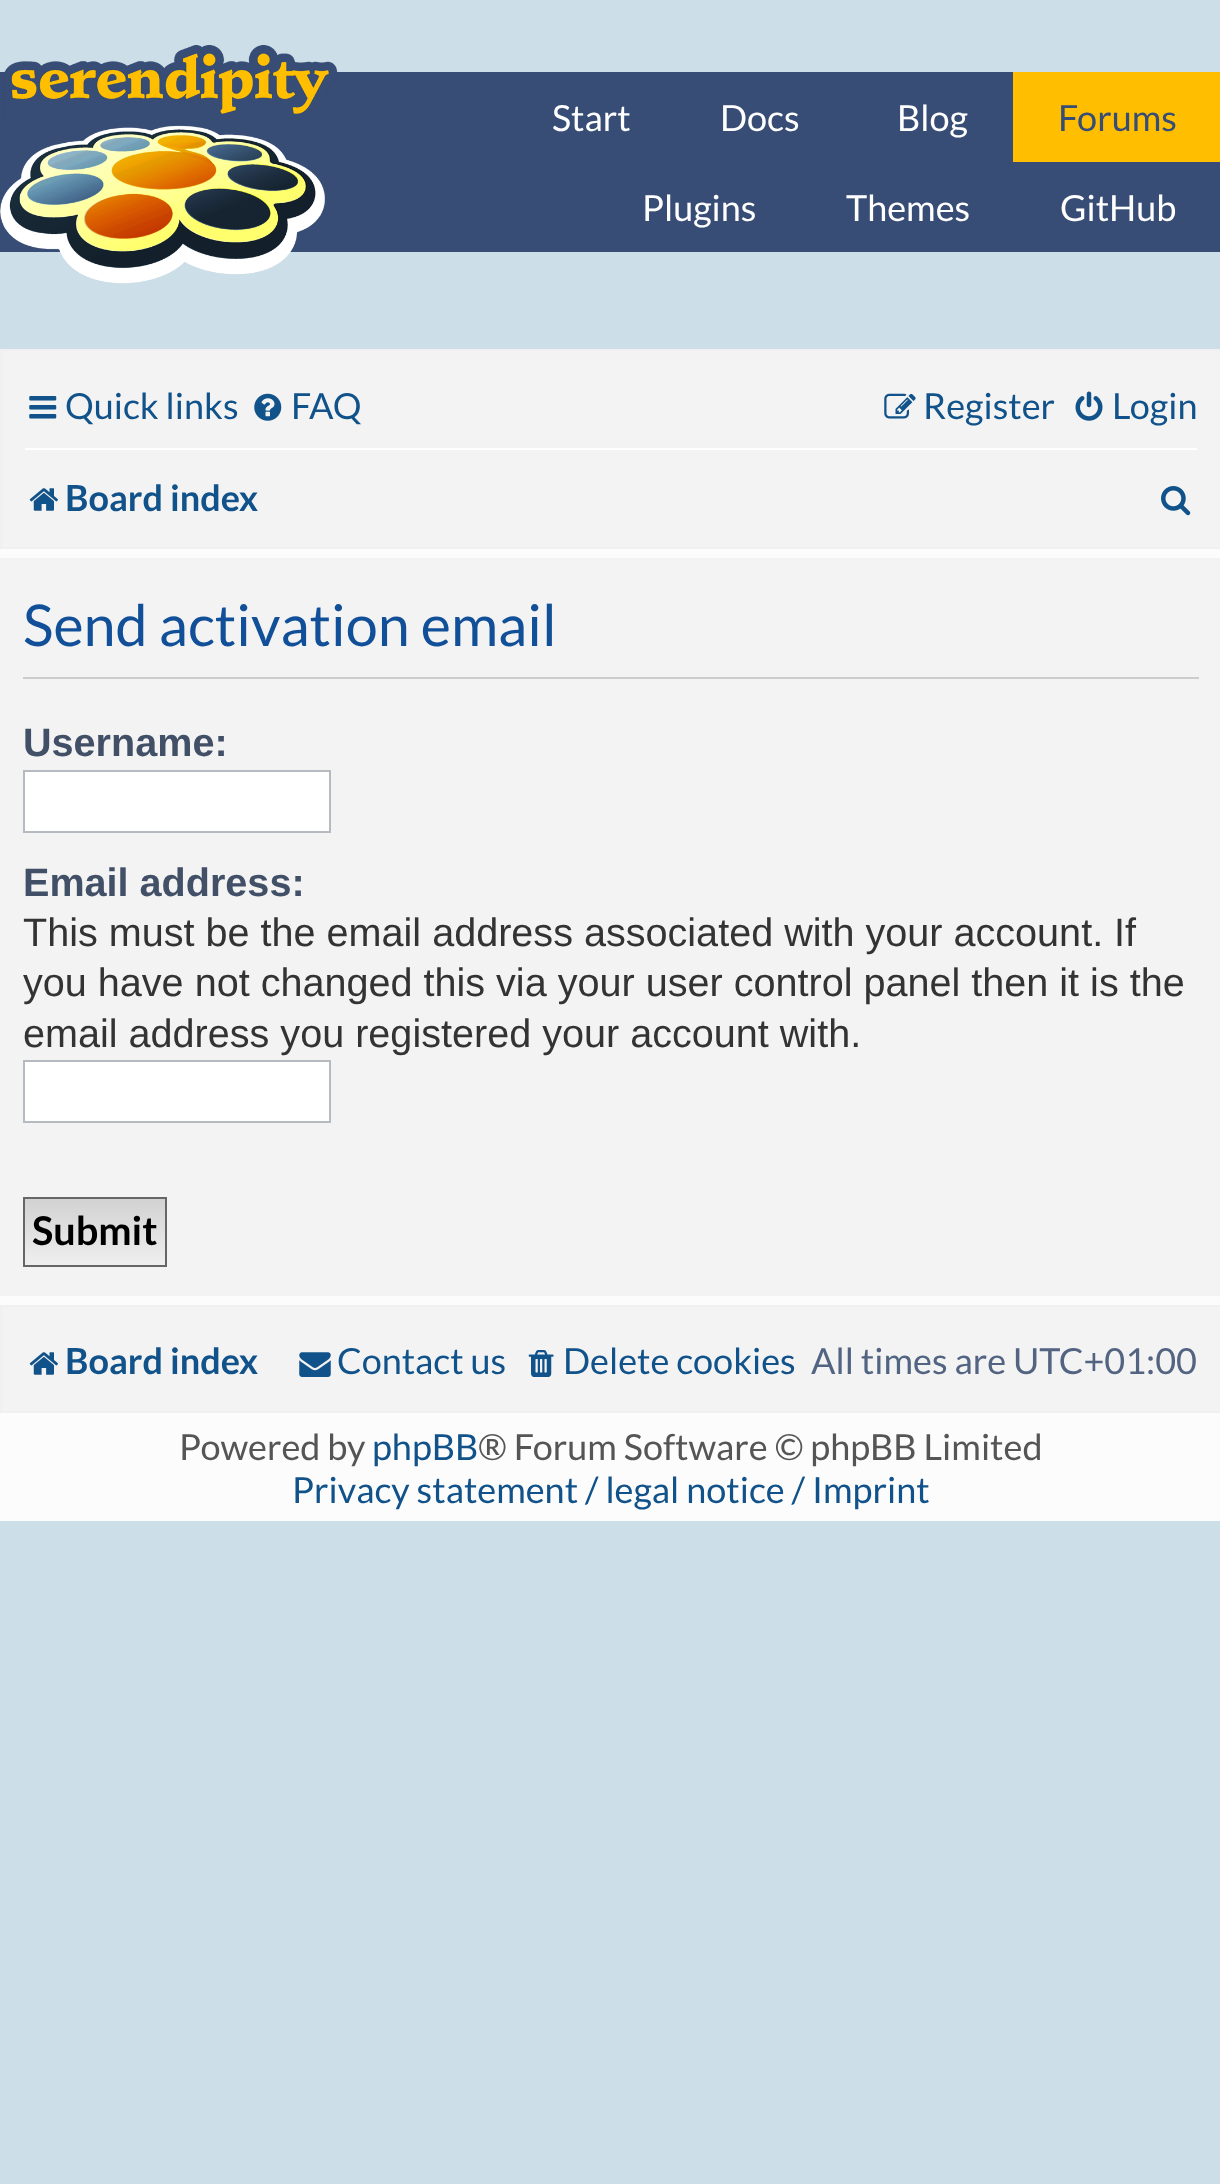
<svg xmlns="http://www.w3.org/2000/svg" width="1220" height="2184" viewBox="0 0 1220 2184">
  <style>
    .t1 { font: 36px Lato; fill: #fff; }
    .t2 { font: 36px Lato; fill: #374d76; }
    .t3 { font: 36px Lato; fill: #105289; }
    .t4 { font: bold 36px Lato; fill: #105289; }
    .t5 { font: 57.5px Lato; fill: #115098; }
    .t6 { font: bold 39.6px Liberation Sans; fill: #425067; }
    .t7 { font: 39.6px Liberation Sans; fill: #333; }
    .t8 { font: bold 39.6px Lato; fill: #000; }
    .t9 { font: 36px Lato; fill: #536482; }
    .t10 { font: 36px Lato; fill: #555; }
  </style>
  <defs>
    <linearGradient id="g1" gradientUnits="userSpaceOnUse" x1="95" y1="1199" x2="95" y2="1265"><stop offset="0" stop-color="#d2d2d2"/><stop offset="1" stop-color="#efefef"/></linearGradient>
  </defs>
  <rect width="100%" height="100%" fill="#ccdee7"/>
  <rect x="0" y="72" width="1220" height="180" fill="#374d76"/>
  <image x="0" y="45" width="338" height="239" href="images/1.png"/>
  <text x="552" y="131" class="t1">Start</text>
  <text x="720" y="131" class="t1">Docs</text>
  <text x="897" y="131" class="t1">Blog</text>
  <rect x="1013" y="72" width="207" height="90" fill="#ffbf00"/>
  <text x="1058" y="131" class="t2">Forums</text>
  <text x="642" y="221" class="t1">Plugins</text>
  <text x="846" y="221" class="t1">Themes</text>
  <text x="1060" y="221" class="t1">GitHub</text>
  <rect x="0" y="549" width="1220" height="972" fill="#fcfcfc"/>
  <rect x="1" y="350" width="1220" height="198" fill="#f3f3f3" stroke="#f0f0f0" stroke-width="2"/>
  <image x="29" y="396" width="28" height="23" href="images/2.png"/>
  <text x="65" y="419" class="t3">Quick links</text>
  <image x="254" y="393" width="28" height="28" href="images/3.png"/>
  <text x="291" y="419" class="t3">FAQ</text>
  <image x="884" y="393" width="32" height="26" href="images/4.png"/>
  <text x="923" y="419" class="t3">Register</text>
  <image x="1075" y="391" width="28" height="30" href="images/5.png"/>
  <text x="1112" y="419" class="t3">Login</text>
  <rect x="25" y="448" width="1172" height="2" fill="#fff"/>
  <image x="29" y="488" width="29" height="23" href="images/6.png"/>
  <text x="65" y="511" class="t4">Board index</text>
  <image x="1161" y="486" width="30" height="30" href="images/7.png"/>
  <rect x="0" y="558" width="1220" height="738" fill="#f3f3f3"/>
  <rect x="23" y="677" width="1176" height="2" fill="#ccc"/>
  <text x="23" y="646" class="t5">Send activation email</text>
  <text x="23" y="756" class="t6">Username:</text>
  <rect x="24" y="771" width="306" height="61" fill="#fff" stroke="#b4bac0" stroke-width="2"/>
  <text x="23" y="896" class="t6">Email address:</text>
  <text x="23" y="946" class="t7">This must be the email address associated with your account. If</text>
  <text x="23" y="996" class="t7">you have not changed this via your user control panel then it is the</text>
  <text x="23" y="1047" class="t7">email address you registered your account with.</text>
  <rect x="24" y="1061" width="306" height="61" fill="#fff" stroke="#b4bac0" stroke-width="2"/>
  <rect x="25" y="1199" width="140" height="66" fill="url(#g1)"/>
  <rect x="24" y="1198" width="142" height="68" fill="none" stroke="#666" stroke-width="2"/>
  <text x="32" y="1245" class="t8">Submit</text>
  <rect x="1" y="1306" width="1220" height="106" fill="#f3f3f3" stroke="#f0f0f0" stroke-width="2"/>
  <image x="29" y="1352" width="29" height="23" href="images/6.png"/>
  <text x="65" y="1374" class="t4">Board index</text>
  <image x="299" y="1352" width="32" height="25" href="images/8.png"/>
  <text x="337" y="1374" class="t3">Contact us</text>
  <image x="528" y="1350" width="26" height="27" href="images/9.png"/>
  <text x="563" y="1374" class="t3">Delete cookies</text>
  <text x="811" y="1374" class="t9">All times are UTC+01:00</text>
  <text x="179" y="1460" class="t10">Powered by</text>
  <text x="372" y="1460" class="t3">phpBB</text>
  <text x="478" y="1460" class="t10">® Forum Software © phpBB Limited</text>
  <text x="292" y="1503" class="t3">Privacy statement / legal notice / Imprint</text>
</svg>
